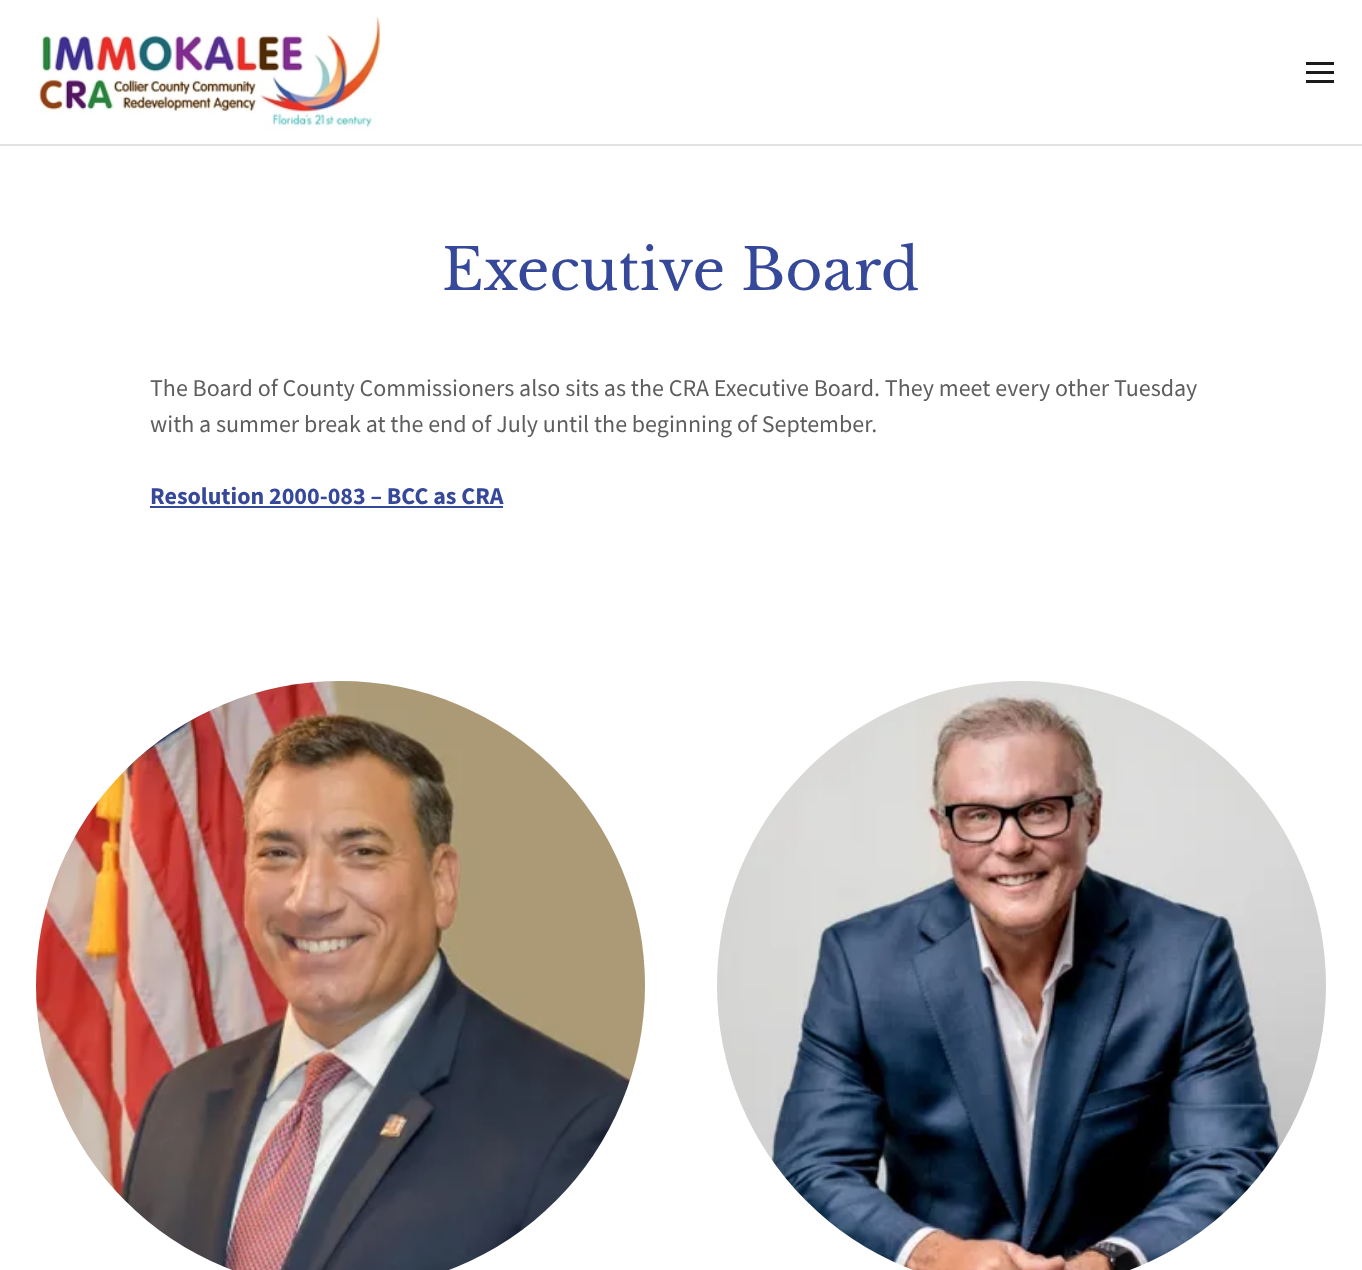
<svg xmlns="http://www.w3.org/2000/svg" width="1362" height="1270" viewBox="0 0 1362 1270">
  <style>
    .t1 { font: 57px Libre Baskerville; fill: #364899; }
    .t2 { font: 24px Source Sans Pro; fill: #5e5e5e; }
    .t3 { font: bold 24px Source Sans Pro; fill: #364899; }
  </style>
  <rect width="100%" height="100%" fill="#fff"/>
  <image x="37" y="16" width="344" height="115" href="images/1.png"/>
  <rect x="1306" y="62" width="28" height="3" fill="#1b1b1b"/>
  <rect x="1306" y="71" width="28" height="3" fill="#1b1b1b"/>
  <rect x="1306" y="80" width="28" height="3" fill="#1b1b1b"/>
  <rect x="0" y="144" width="1362" height="2" fill="#e2e2e2"/>
  <text x="442" y="290" class="t1">Executive Board</text>
  <text x="150" y="396" class="t2">The Board of County Commissioners also sits as the CRA Executive Board. They meet every other Tuesday</text>
  <text x="150" y="432" class="t2">with a summer break at the end of July until the beginning of September.</text>
  <text x="150" y="504" class="t3">Resolution 2000-083 – BCC as CRA</text>
  <rect x="150" y="506" width="353" height="2" fill="#364899"/>
  <image x="36" y="681" width="609" height="589" href="images/2.png"/>
  <image x="717" y="681" width="609" height="589" href="images/3.png"/>
</svg>
